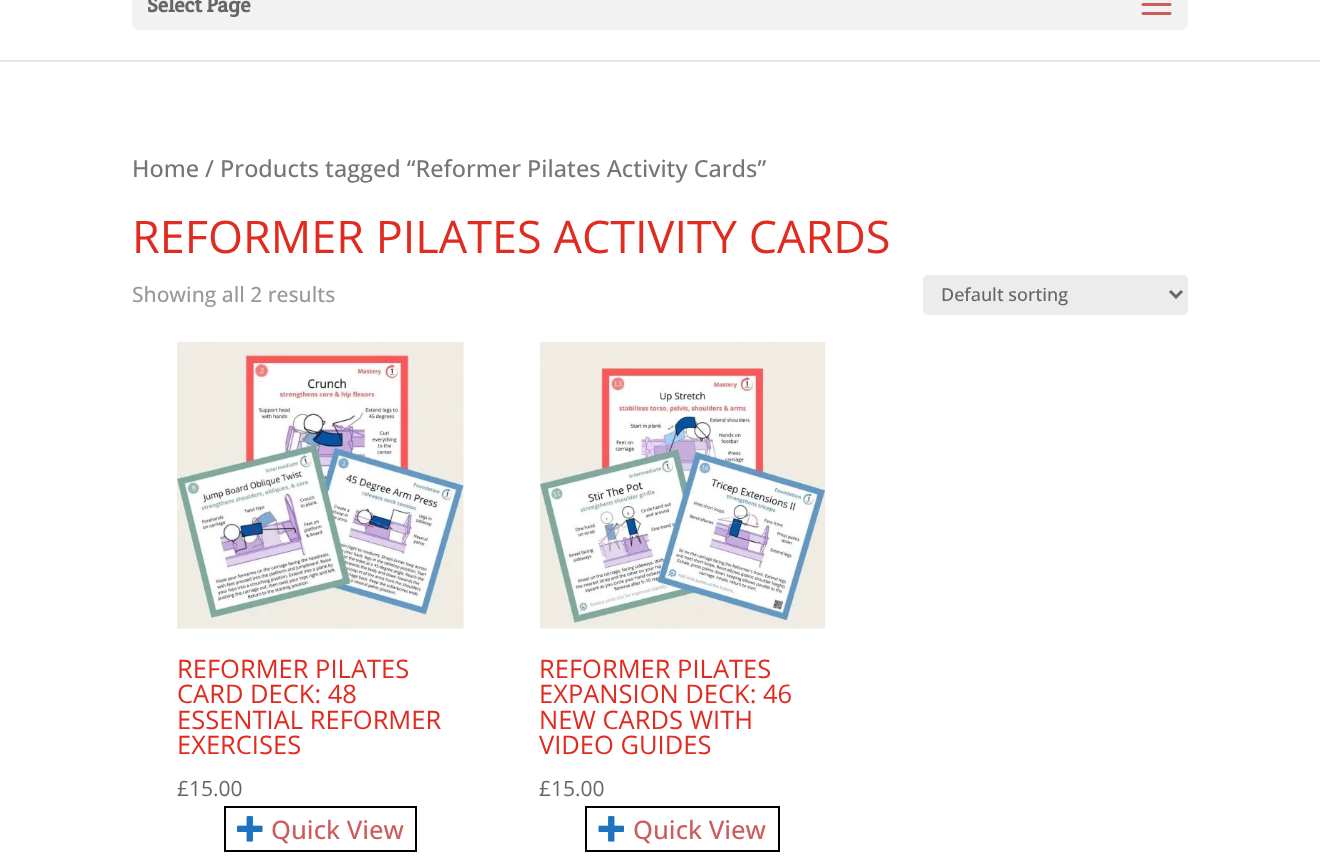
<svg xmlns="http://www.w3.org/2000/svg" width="1320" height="865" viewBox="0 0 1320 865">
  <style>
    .t1 { font: bold 21px Crete Round; fill: #666; }
    .t2 { font: 500 23.45px Open Sans; fill: #767676; }
    .t3 { font: 45px Open Sans; fill: #e02b20; }
    .t4 { font: 500 21px Open Sans; fill: #999; }
    .t5 { font: 500 18px Open Sans; fill: #666; }
    .t6 { font: 25.5px Open Sans; fill: #e02b20; }
    .t7 { font: 21px Open Sans; fill: #666; }
    .t8 { font: 500 25.5px Open Sans; fill: #cd5c5c; }
  </style>
  <rect width="100%" height="100%" fill="#fff"/>
  <rect x="0" y="60" width="1320" height="2" fill="#e6e6e6"/>
  <rect x="132" y="-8" width="1056" height="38" rx="8" fill="#f2f2f2"/>
  <text x="147" y="12" class="t1">Select Page</text>
  <image x="1141" y="3" width="31" height="12" href="images/1.png"/>
  <text x="132" y="177" class="t2">Home / Products tagged “Reformer Pilates Activity Cards”</text>
  <text x="132" y="253" class="t3">REFORMER PILATES ACTIVITY CARDS</text>
  <text x="132" y="302" class="t4">Showing all 2 results</text>
  <rect x="923" y="275" width="265" height="40" rx="5" fill="#ececec"/>
  <path d="M1170 291L1176 297L1182 291" fill="none" stroke="#666" stroke-width="3"/>
  <text x="941" y="301" class="t5">Default sorting</text>
  <image x="177" y="342" width="287" height="287" href="images/2.png"/>
  <text x="177" y="678" class="t6">REFORMER PILATES</text>
  <text x="177" y="703" class="t6">CARD DECK: 48</text>
  <text x="177" y="729" class="t6">ESSENTIAL REFORMER</text>
  <text x="177" y="754" class="t6">EXERCISES</text>
  <text x="177" y="796" class="t7">£15.00</text>
  <rect x="225" y="807" width="191" height="44" fill="none" stroke="#000" stroke-width="2"/>
  <image x="237" y="816" width="26" height="26" href="images/3.png"/>
  <text x="271" y="839" class="t8">Quick View</text>
  <image x="540" y="342" width="285" height="287" href="images/4.png"/>
  <text x="539" y="678" class="t6">REFORMER PILATES</text>
  <text x="539" y="703" class="t6">EXPANSION DECK: 46</text>
  <text x="539" y="729" class="t6">NEW CARDS WITH</text>
  <text x="539" y="754" class="t6">VIDEO GUIDES</text>
  <text x="539" y="796" class="t7">£15.00</text>
  <rect x="586" y="807" width="193" height="44" fill="none" stroke="#000" stroke-width="2"/>
  <image x="598" y="816" width="26" height="26" href="images/5.png"/>
  <text x="633" y="839" class="t8">Quick View</text>
</svg>
